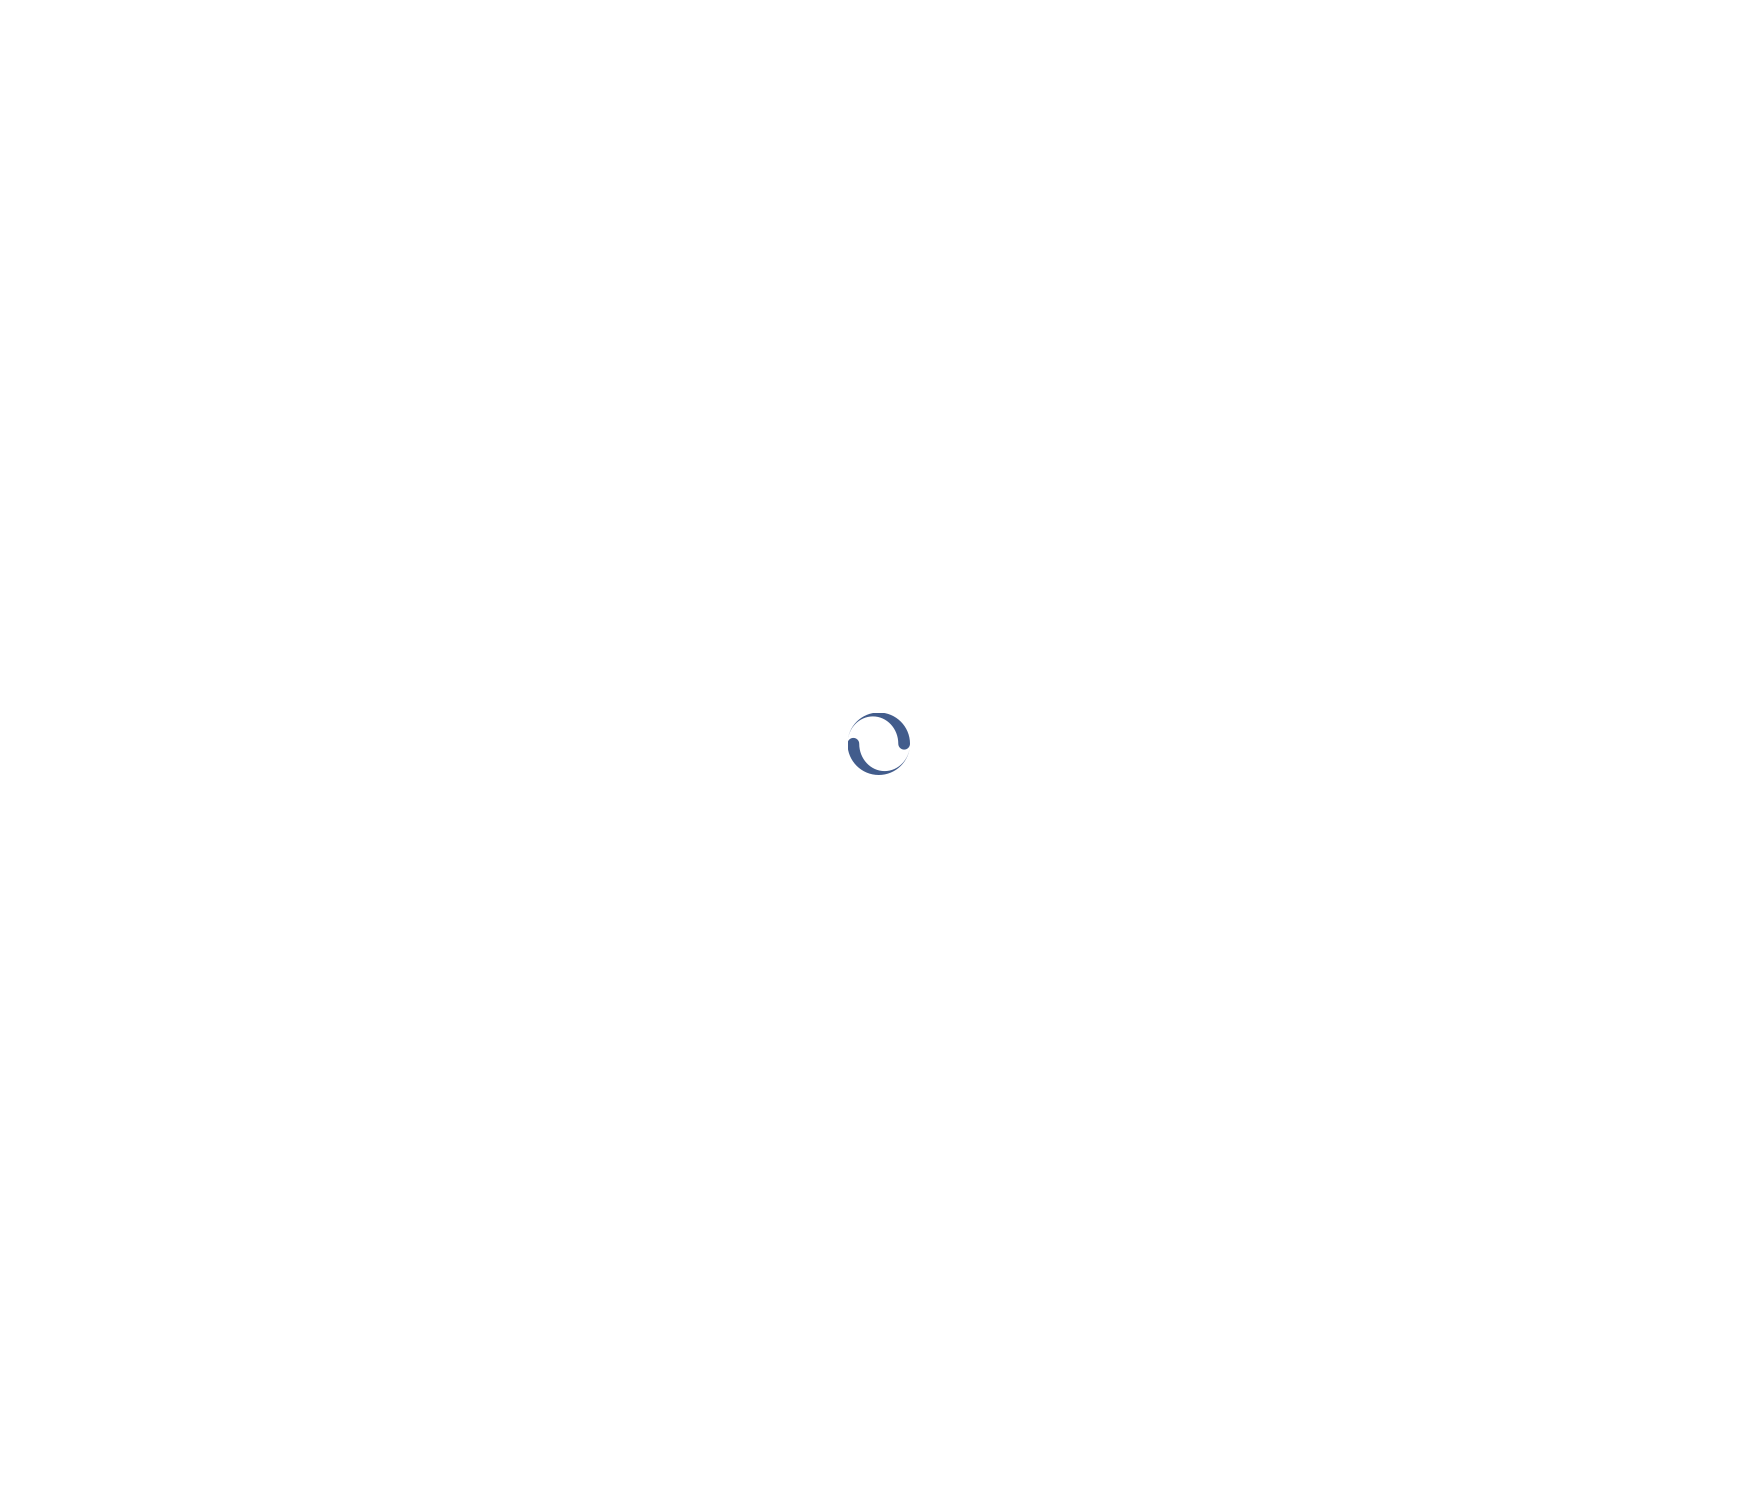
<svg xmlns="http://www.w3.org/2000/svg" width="1757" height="1486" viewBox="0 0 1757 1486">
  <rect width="100%" height="100%" fill="#fff"/>
  <image x="848" y="713" width="62" height="62" href="images/1.png"/>
</svg>
